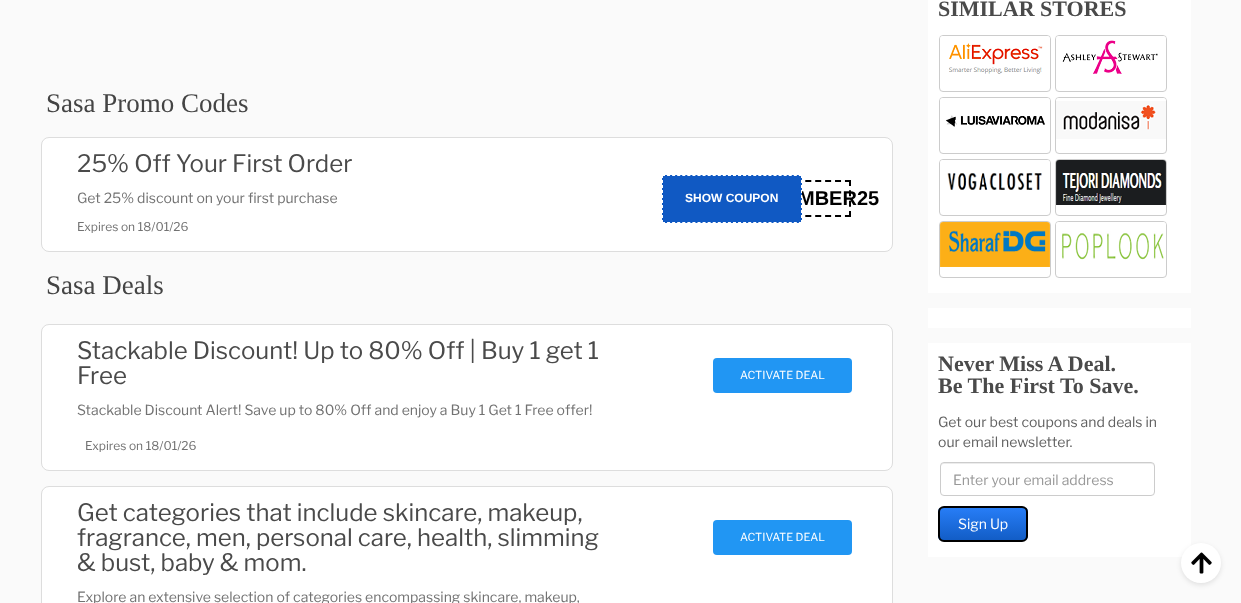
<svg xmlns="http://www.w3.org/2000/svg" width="1241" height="603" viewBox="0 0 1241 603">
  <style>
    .t1 { font: 27px Liberation Serif; fill: #444; }
    .t2 { font: 24px Libre Franklin; fill: #4a4a4a; }
    .t3 { font: 14px Libre Franklin; fill: #727272; }
    .t4 { font: 12px Libre Franklin; fill: #727272; }
    .t5 { font: bold 20px Liberation Sans; fill: #000; }
    .t6 { font: bold 12px Liberation Sans; fill: #fff; }
    .t7 { font: 11px Libre Franklin; fill: #fff; }
    .t8 { font: bold 22px Liberation Serif; fill: #4a4a4a; }
    .t9 { font: 14px Libre Franklin; fill: #616161; }
    .t10 { font: 14px Libre Franklin; fill: #999; }
    .t11 { font: 14px Libre Franklin; fill: #fff; }
  </style>
  <defs>
    <clipPath id="clip1"><rect x="938" y="506" width="90" height="36" rx="6"/></clipPath>
    <linearGradient id="g1" gradientUnits="userSpaceOnUse" x1="983" y1="508" x2="983" y2="540"><stop offset="0" stop-color="#277df6"/><stop offset="1" stop-color="#125dc6"/></linearGradient>
  </defs>
  <rect width="100%" height="100%" fill="#fafafa"/>
  <text x="46" y="112" class="t1">Sasa Promo Codes</text>
  <rect x="41.5" y="137.5" width="851" height="114" rx="7.5" fill="#fff" stroke="#ddd"/>
  <text x="77" y="172" class="t2">25% Off Your First Order</text>
  <text x="77" y="203" class="t3">Get 25% discount on your first purchase</text>
  <text x="77" y="231" class="t4">Expires on 18/01/26</text>
  <path d="M716 181H851" fill="none" stroke="#000" stroke-width="2" stroke-dasharray="6 3.92"/>
  <path d="M850 180V217" fill="none" stroke="#000" stroke-width="2" stroke-dasharray="6 4.33"/>
  <path d="M716 216H851" fill="none" stroke="#000" stroke-width="2" stroke-dasharray="6 3.92"/>
  <text x="798" y="205" class="t5">MBER25</text>
  <rect x="662" y="175" width="140" height="48" fill="#1059c3"/>
  <path d="M662 175.5H802" fill="none" stroke="#fff" stroke-dasharray="3 2.07"/>
  <path d="M801.5 175V223" fill="none" stroke="#fff" stroke-dasharray="3 2"/>
  <path d="M662 222.5H802" fill="none" stroke="#fff" stroke-dasharray="3 2.07"/>
  <path d="M662.5 175V223" fill="none" stroke="#fff" stroke-dasharray="3 2"/>
  <text x="685" y="202" class="t6">SHOW COUPON</text>
  <text x="46" y="294" class="t1">Sasa Deals</text>
  <rect x="41.5" y="324.5" width="851" height="146" rx="7.5" fill="#fff" stroke="#ddd"/>
  <text x="77" y="359" class="t2">Stackable Discount! Up to 80% Off | Buy 1 get 1</text>
  <text x="77" y="384" class="t2">Free</text>
  <text x="77" y="415" class="t3">Stackable Discount Alert! Save up to 80% Off and enjoy a Buy 1 Get 1 Free offer!</text>
  <text x="85" y="450" class="t4">Expires on 18/01/26</text>
  <rect x="713" y="358" width="139" height="35" rx="4" fill="#2196f3"/>
  <text x="740" y="379" class="t7">ACTIVATE DEAL</text>
  <rect x="41.5" y="486.5" width="851" height="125" rx="7.5" fill="#fff" stroke="#ddd"/>
  <text x="77" y="521" class="t2">Get categories that include skincare, makeup,</text>
  <text x="77" y="546" class="t2">fragrance, men, personal care, health, slimming</text>
  <text x="77" y="571" class="t2">&amp; bust, baby &amp; mom.</text>
  <text x="77" y="602" class="t3">Explore an extensive selection of categories encompassing skincare, makeup,</text>
  <rect x="713" y="520" width="139" height="35" rx="4" fill="#2196f3"/>
  <text x="740" y="541" class="t7">ACTIVATE DEAL</text>
  <rect x="928" y="0" width="263" height="293" fill="#fff"/>
  <text x="938" y="16" class="t8">SIMILAR STORES</text>
  <rect x="939.5" y="35.5" width="111" height="56" rx="3.5" fill="none" stroke="#ccc"/>
  <image x="940" y="36" width="110" height="38" href="images/1.png"/>
  <rect x="1055.5" y="35.5" width="111" height="56" rx="3.5" fill="none" stroke="#ccc"/>
  <image x="1056" y="36" width="110" height="38" href="images/2.png"/>
  <rect x="939.5" y="97.5" width="111" height="56" rx="3.5" fill="none" stroke="#ccc"/>
  <image x="940" y="98" width="110" height="29" href="images/3.png"/>
  <rect x="1055.5" y="97.5" width="111" height="56" rx="3.5" fill="none" stroke="#ccc"/>
  <image x="1056" y="98" width="110" height="41" href="images/4.png"/>
  <rect x="939.5" y="159.5" width="111" height="56" rx="3.5" fill="none" stroke="#ccc"/>
  <image x="940" y="160" width="110" height="30" href="images/5.png"/>
  <rect x="1055.5" y="159.5" width="111" height="56" rx="3.5" fill="none" stroke="#ccc"/>
  <image x="1056" y="160" width="110" height="45" href="images/6.png"/>
  <rect x="939.5" y="221.5" width="111" height="56" rx="3.5" fill="none" stroke="#ccc"/>
  <image x="940" y="222" width="110" height="45" href="images/7.png"/>
  <rect x="1055.5" y="221.5" width="111" height="56" rx="3.5" fill="none" stroke="#ccc"/>
  <image x="1056" y="222" width="110" height="38" href="images/8.png"/>
  <rect x="928" y="308" width="263" height="20" fill="#fff"/>
  <rect x="928" y="343" width="263" height="214" fill="#fff"/>
  <text x="938" y="371" class="t8">Never Miss A Deal.</text>
  <text x="938" y="393" class="t8">Be The First To Save.</text>
  <text x="938" y="427" class="t9">Get our best coupons and deals in</text>
  <text x="938" y="447" class="t9">our email newsletter.</text>
  <path d="M944 464H1151C1153 464 1154 465 1154 467V466C1154 464 1153 463 1151 463H944C942 463 941 464 941 466V467C941 465 942 464 944 464Z" fill="#ececec"/>
  <rect x="940.5" y="462.5" width="214" height="33" rx="3.5" fill="none" stroke="#ccc"/>
  <text x="953" y="485" class="t10">Enter your email address</text>
  <g clip-path="url(#clip1)">
    <rect x="938" y="508" width="90" height="32" fill="url(#g1)"/>
  </g>
  <rect x="939" y="507" width="88" height="34" rx="5" fill="none" stroke="#000" stroke-width="2"/>
  <text x="958" y="529" class="t11">Sign Up</text>
  <rect x="1181" y="545" width="40" height="40" rx="20" fill="#0000001a" filter="blur(2.5px)"/>
  <circle cx="1201" cy="563" r="20" fill="#fff"/>
  <image x="1191" y="552" width="21" height="22" href="images/9.png"/>
</svg>
